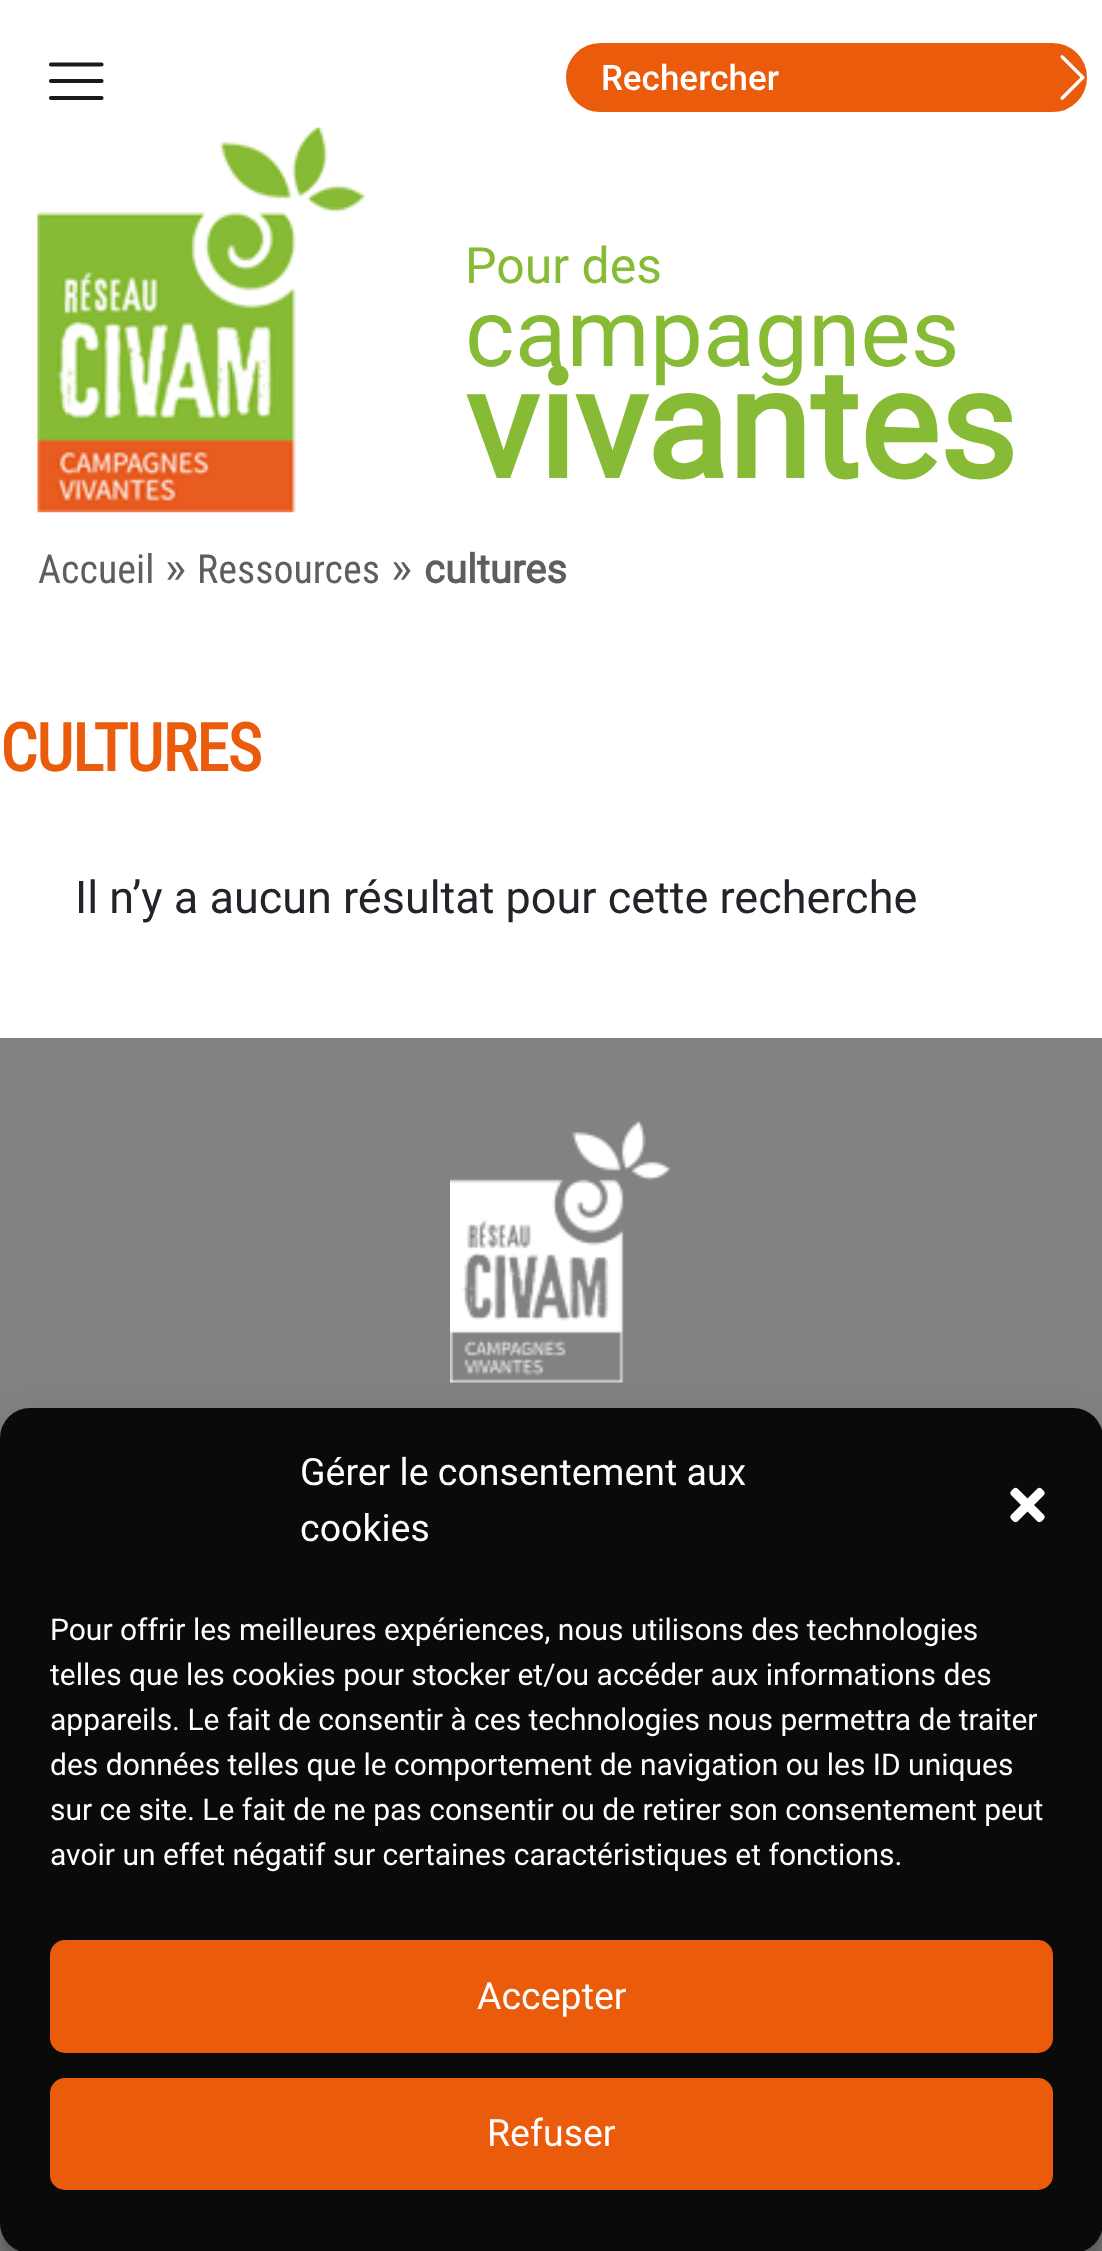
<svg xmlns="http://www.w3.org/2000/svg" width="1102" height="2251" viewBox="0 0 1102 2251">
  <style>
    .t1 { font: 500 35px Roboto; fill: #fff; }
    .t2 { font: 50px Roboto; fill: #87bb35; }
    .t3 { font: 95px Roboto; fill: #87bb35; }
    .t4 { font: bold 150px Roboto; fill: #87bb35; }
    .t5 { font: 40px Roboto Condensed; fill: #5d5f5e; }
    .t6 { font: 45px Roboto; fill: #5d5f5e; }
    .t7 { font: bold 40px Roboto; fill: #5d5f5e; }
    .t8 { font: bold 66px Roboto Condensed; letter-spacing: -1.25px; fill: #ea5b0c; }
    .t9 { font: 45px Roboto; fill: #212529; }
    .t10 { font: 37.5px Roboto; fill: #fff; }
    .t11 { font: 30px Roboto; fill: #fff; }
  </style>
  <rect width="100%" height="100%" fill="#fff"/>
  <path d="M51 64.5H101.5M51 81H101.5M51 98H101.5" fill="none" stroke="#1a1a1a" stroke-width="4.2" stroke-linecap="round"/>
  <rect x="564.5" y="41.5" width="524" height="72" rx="36" fill="#ea5b0c" stroke="#fff" stroke-width="3"/>
  <text x="601" y="90" class="t1">Rechercher</text>
  <image x="1060" y="55" width="25" height="45" href="images/1.png"/>
  <image x="37" y="127" width="328" height="386" href="images/2.png"/>
  <text x="465" y="283" class="t2">Pour des</text>
  <text x="465" y="366" class="t3">campagnes</text>
  <text x="465" y="478" class="t4">vivantes</text>
  <text x="38" y="583" class="t5">Accueil</text>
  <text x="165" y="583" class="t6">»</text>
  <text x="197" y="583" class="t5">Ressources</text>
  <text x="391" y="583" class="t6">»</text>
  <text x="424" y="583" class="t7">cultures</text>
  <text x="0" y="771" class="t8">CULTURES</text>
  <text x="75" y="913" class="t9">Il n’y a aucun résultat pour cette recherche</text>
  <rect x="0" y="1038" width="1102" height="1213" fill="#818382"/>
  <image x="450" y="1120" width="220" height="263" href="images/3.png"/>
  <rect x="0" y="1423" width="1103" height="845" rx="30" fill="#0000003b" filter="blur(7.5px)"/>
  <rect x="0" y="1433" width="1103" height="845" rx="30" fill="#00000030" filter="blur(25px)"/>
  <rect x="0" y="1408" width="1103" height="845" rx="30" fill="#0a0a0a"/>
  <text x="300" y="1485" class="t10">Gérer le consentement aux</text>
  <text x="300" y="1541" class="t10">cookies</text>
  <image x="1010" y="1487" width="35" height="36" href="images/4.png"/>
  <text x="50" y="1640" class="t11">Pour offrir les meilleures expériences, nous utilisons des technologies</text>
  <text x="50" y="1685" class="t11">telles que les cookies pour stocker et/ou accéder aux informations des</text>
  <text x="50" y="1730" class="t11">appareils. Le fait de consentir à ces technologies nous permettra de traiter</text>
  <text x="50" y="1775" class="t11">des données telles que le comportement de navigation ou les ID uniques</text>
  <text x="50" y="1820" class="t11">sur ce site. Le fait de ne pas consentir ou de retirer son consentement peut</text>
  <text x="50" y="1865" class="t11">avoir un effet négatif sur certaines caractéristiques et fonctions.</text>
  <rect x="51.5" y="1941.5" width="1000" height="110" rx="13.5" fill="#ea5b0c" stroke="#ea5b0c" stroke-width="3"/>
  <text x="477" y="2009" class="t10">Accepter</text>
  <rect x="51.5" y="2079.5" width="1000" height="109" rx="13.5" fill="#ea5b0c" stroke="#ea5b0c" stroke-width="3"/>
  <text x="487" y="2146" class="t10">Refuser</text>
</svg>
